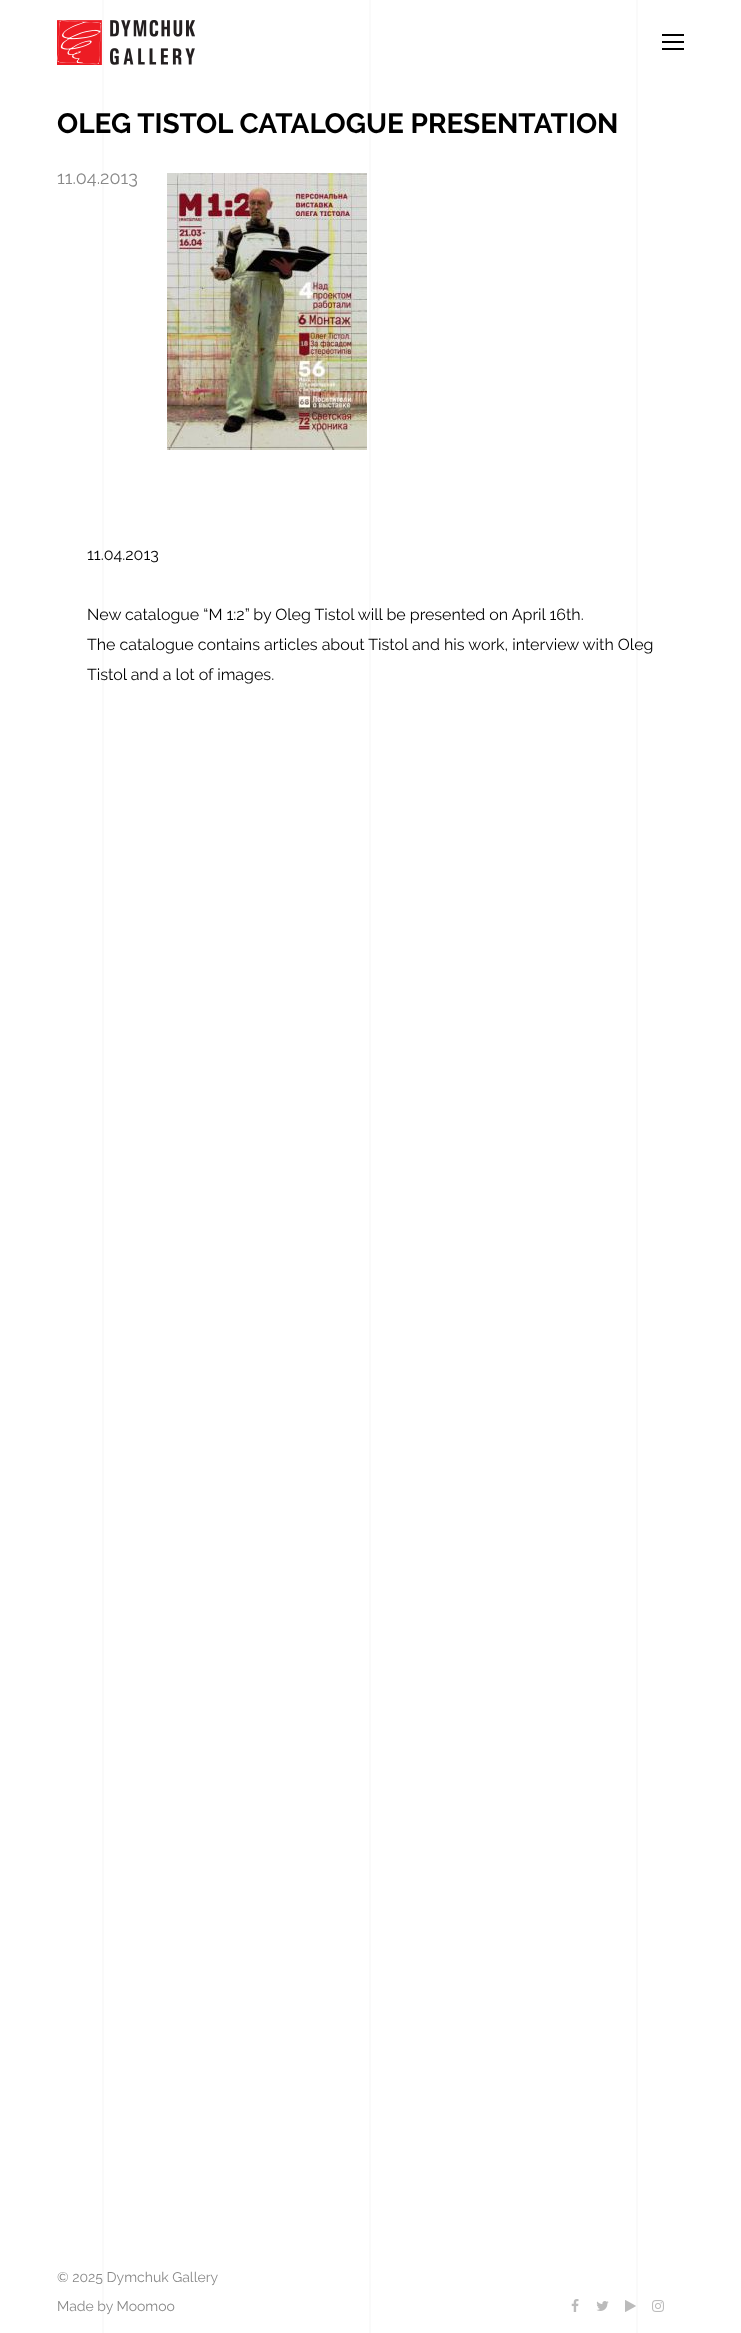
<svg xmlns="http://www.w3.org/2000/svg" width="741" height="2333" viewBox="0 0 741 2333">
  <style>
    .t1 { font: bold 28px Raleway; fill: #000; }
    .t2 { font: 18px Raleway; fill: #888; }
    .t3 { font: 16px Raleway; fill: #000; }
    .t4 { font: 14px Raleway; fill: #888; }
  </style>
  <rect width="100%" height="100%" fill="#fff"/>
  <image x="102" y="0" width="536" height="2333" href="images/1.png"/>
  <image x="57" y="20" width="138" height="45" href="images/2.png"/>
  <rect x="662" y="34" width="22" height="2" fill="#000"/>
  <rect x="662" y="41" width="22" height="2" fill="#000"/>
  <rect x="662" y="48" width="22" height="2" fill="#000"/>
  <text x="57" y="133" class="t1">OLEG TISTOL CATALOGUE PRESENTATION</text>
  <text x="57" y="184" class="t2">11.04.2013</text>
  <image x="167" y="173" width="200" height="277" href="images/3.png"/>
  <text x="87" y="560" class="t3">11.04.2013</text>
  <text x="87" y="620" class="t3">New catalogue “M 1:2” by Oleg Tistol will be presented on April 16th.</text>
  <text x="87" y="650" class="t3">The catalogue contains articles about Tistol and his work, interview with Oleg</text>
  <text x="87" y="680" class="t3">Tistol and a lot of images.</text>
  <text x="57" y="2282" class="t4">© 2025 Dymchuk Gallery</text>
  <text x="57" y="2311" class="t4">Made by Moomoo</text>
  <image x="571" y="2299" width="8" height="13" href="images/4.png"/>
  <image x="596" y="2301" width="13" height="10" href="images/5.png"/>
  <image x="625" y="2300" width="11" height="12" href="images/6.png"/>
  <image x="652" y="2300" width="12" height="12" href="images/7.png"/>
</svg>
